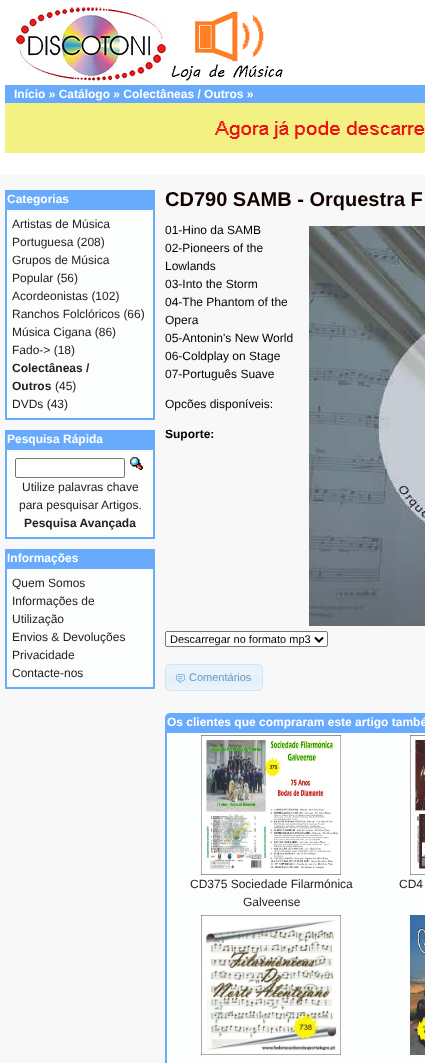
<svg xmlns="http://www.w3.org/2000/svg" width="425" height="1063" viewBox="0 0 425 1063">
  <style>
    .t1 { font: bold 12px Liberation Sans; fill: #fff; }
    .t2 { font: 12px Liberation Sans; fill: #222; }
    .t3 { font: bold 12px Liberation Sans; fill: #222; }
    .t4 { font: bold 20px Liberation Sans; fill: #100; }
    .t5 { font: 12px Liberation Sans; fill: #000; }
    .t6 { font: bold 12px Liberation Sans; fill: #000; }
    .t7 { font: 11px Liberation Sans; fill: #000; }
    .t8 { font: 11px Liberation Sans; fill: #6b97b9; }
  </style>
  <rect width="100%" height="100%" fill="#f8f8f8"/>
  <rect x="0" y="0" width="425" height="175" fill="#fff"/>
  <image x="5" y="103" width="420" height="50" href="images/1.png"/>
  <image x="15" y="7" width="268" height="76" href="images/2.png"/>
  <image x="5" y="85" width="420" height="18" href="images/3.png"/>
  <text x="14" y="98" class="t1">Início » Catálogo » Colectâneas / Outros »</text>
  <image x="5" y="190" width="150" height="18" href="images/4.png"/>
  <text x="7" y="203" class="t1">Categorias</text>
  <rect x="6" y="209" width="148" height="210" fill="#fcfdfd" stroke="#68abfd" stroke-width="2"/>
  <text x="12" y="228" class="t2">Artistas de Música</text>
  <text x="12" y="246" class="t2">Portuguesa (208)</text>
  <text x="12" y="264" class="t2">Grupos de Música</text>
  <text x="12" y="282" class="t2">Popular (56)</text>
  <text x="12" y="300" class="t2">Acordeonistas (102)</text>
  <text x="12" y="318" class="t2">Ranchos Folclóricos (66)</text>
  <text x="12" y="336" class="t2">Música Cigana (86)</text>
  <text x="12" y="354" class="t2">Fado-&gt; (18)</text>
  <text x="12" y="372" class="t3">Colectâneas /</text>
  <text x="12" y="390" class="t3">Outros</text>
  <text x="55" y="390" class="t2">(45)</text>
  <text x="12" y="408" class="t2">DVDs (43)</text>
  <image x="5" y="430" width="150" height="18" href="images/4.png"/>
  <text x="7" y="443" class="t1">Pesquisa Rápida</text>
  <rect x="6" y="449" width="148" height="89" fill="#fcfdfd" stroke="#68abfd" stroke-width="2"/>
  <rect x="15.5" y="458.5" width="109" height="19" rx="1.5" fill="#fff" stroke="#767676"/>
  <image x="130" y="457" width="13" height="13" href="images/5.png"/>
  <text x="22" y="491" class="t2">Utilize palavras chave</text>
  <text x="19" y="509" class="t2">para pesquisar Artigos.</text>
  <text x="24" y="527" class="t3">Pesquisa Avançada</text>
  <image x="5" y="549" width="150" height="18" href="images/4.png"/>
  <text x="7" y="562" class="t1">Informações</text>
  <rect x="6" y="568" width="148" height="120" fill="#fcfdfd" stroke="#68abfd" stroke-width="2"/>
  <text x="12" y="587" class="t2">Quem Somos</text>
  <text x="12" y="605" class="t2">Informações de</text>
  <text x="12" y="623" class="t2">Utilização</text>
  <text x="12" y="641" class="t2">Envios &amp; Devoluções</text>
  <text x="12" y="659" class="t2">Privacidade</text>
  <text x="12" y="677" class="t2">Contacte-nos</text>
  <text x="165" y="206" class="t4">CD790 SAMB - Orquestra F</text>
  <text x="165" y="234" class="t5">01-Hino da SAMB</text>
  <rect x="309" y="226" width="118" height="400" fill="#000" filter="blur(0.5px)"/>
  <image x="309" y="226" width="116" height="400" href="images/6.png"/>
  <text x="165" y="252" class="t5">02-Pioneers of the</text>
  <text x="165" y="270" class="t5">Lowlands</text>
  <text x="165" y="288" class="t5">03-Into the Storm</text>
  <text x="165" y="306" class="t5">04-The Phantom of the</text>
  <text x="165" y="324" class="t5">Opera</text>
  <text x="165" y="342" class="t5">05-Antonin's New World</text>
  <text x="165" y="360" class="t5">06-Coldplay on Stage</text>
  <text x="165" y="378" class="t5">07-Português Suave</text>
  <text x="165" y="408" class="t5">Opcões disponíveis:</text>
  <text x="165" y="438" class="t6">Suporte:</text>
  <rect x="165.5" y="631.5" width="162" height="15" rx="1.5" fill="#fff" stroke="#767676"/>
  <path d="M315 637.5L319 641.5L323 637.5" fill="none" stroke="#000" stroke-width="2"/>
  <text x="170" y="643" class="t7">Descarregar no formato mp3</text>
  <rect x="165" y="664" width="98" height="27" rx="5" fill="#e7f2fb"/>
  <image x="165" y="677" width="98" height="14" href="images/7.png"/>
  <rect x="165.5" y="664.5" width="97" height="26" rx="4.5" fill="none" stroke="#d4e4f0"/>
  <image x="176" y="674" width="9" height="9" href="images/8.png"/>
  <text x="189" y="681" class="t8">Comentários</text>
  <image x="165" y="713" width="260" height="18" href="images/9.png"/>
  <text x="167" y="726" class="t1">Os clientes que compraram este artigo també</text>
  <rect x="166" y="732" width="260" height="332" fill="#fcfdfd" stroke="#68abfd" stroke-width="2"/>
  <image x="201" y="735" width="140" height="140" href="images/10.png"/>
  <text x="190" y="888" class="t2">CD375 Sociedade Filarmónica</text>
  <text x="243" y="906" class="t2">Galveense</text>
  <image x="410" y="735" width="15" height="140" href="images/11.png"/>
  <text x="399" y="888" class="t2">CD4</text>
  <image x="201" y="915" width="140" height="140" href="images/12.png"/>
  <image x="410" y="915" width="15" height="140" href="images/13.png"/>
</svg>
